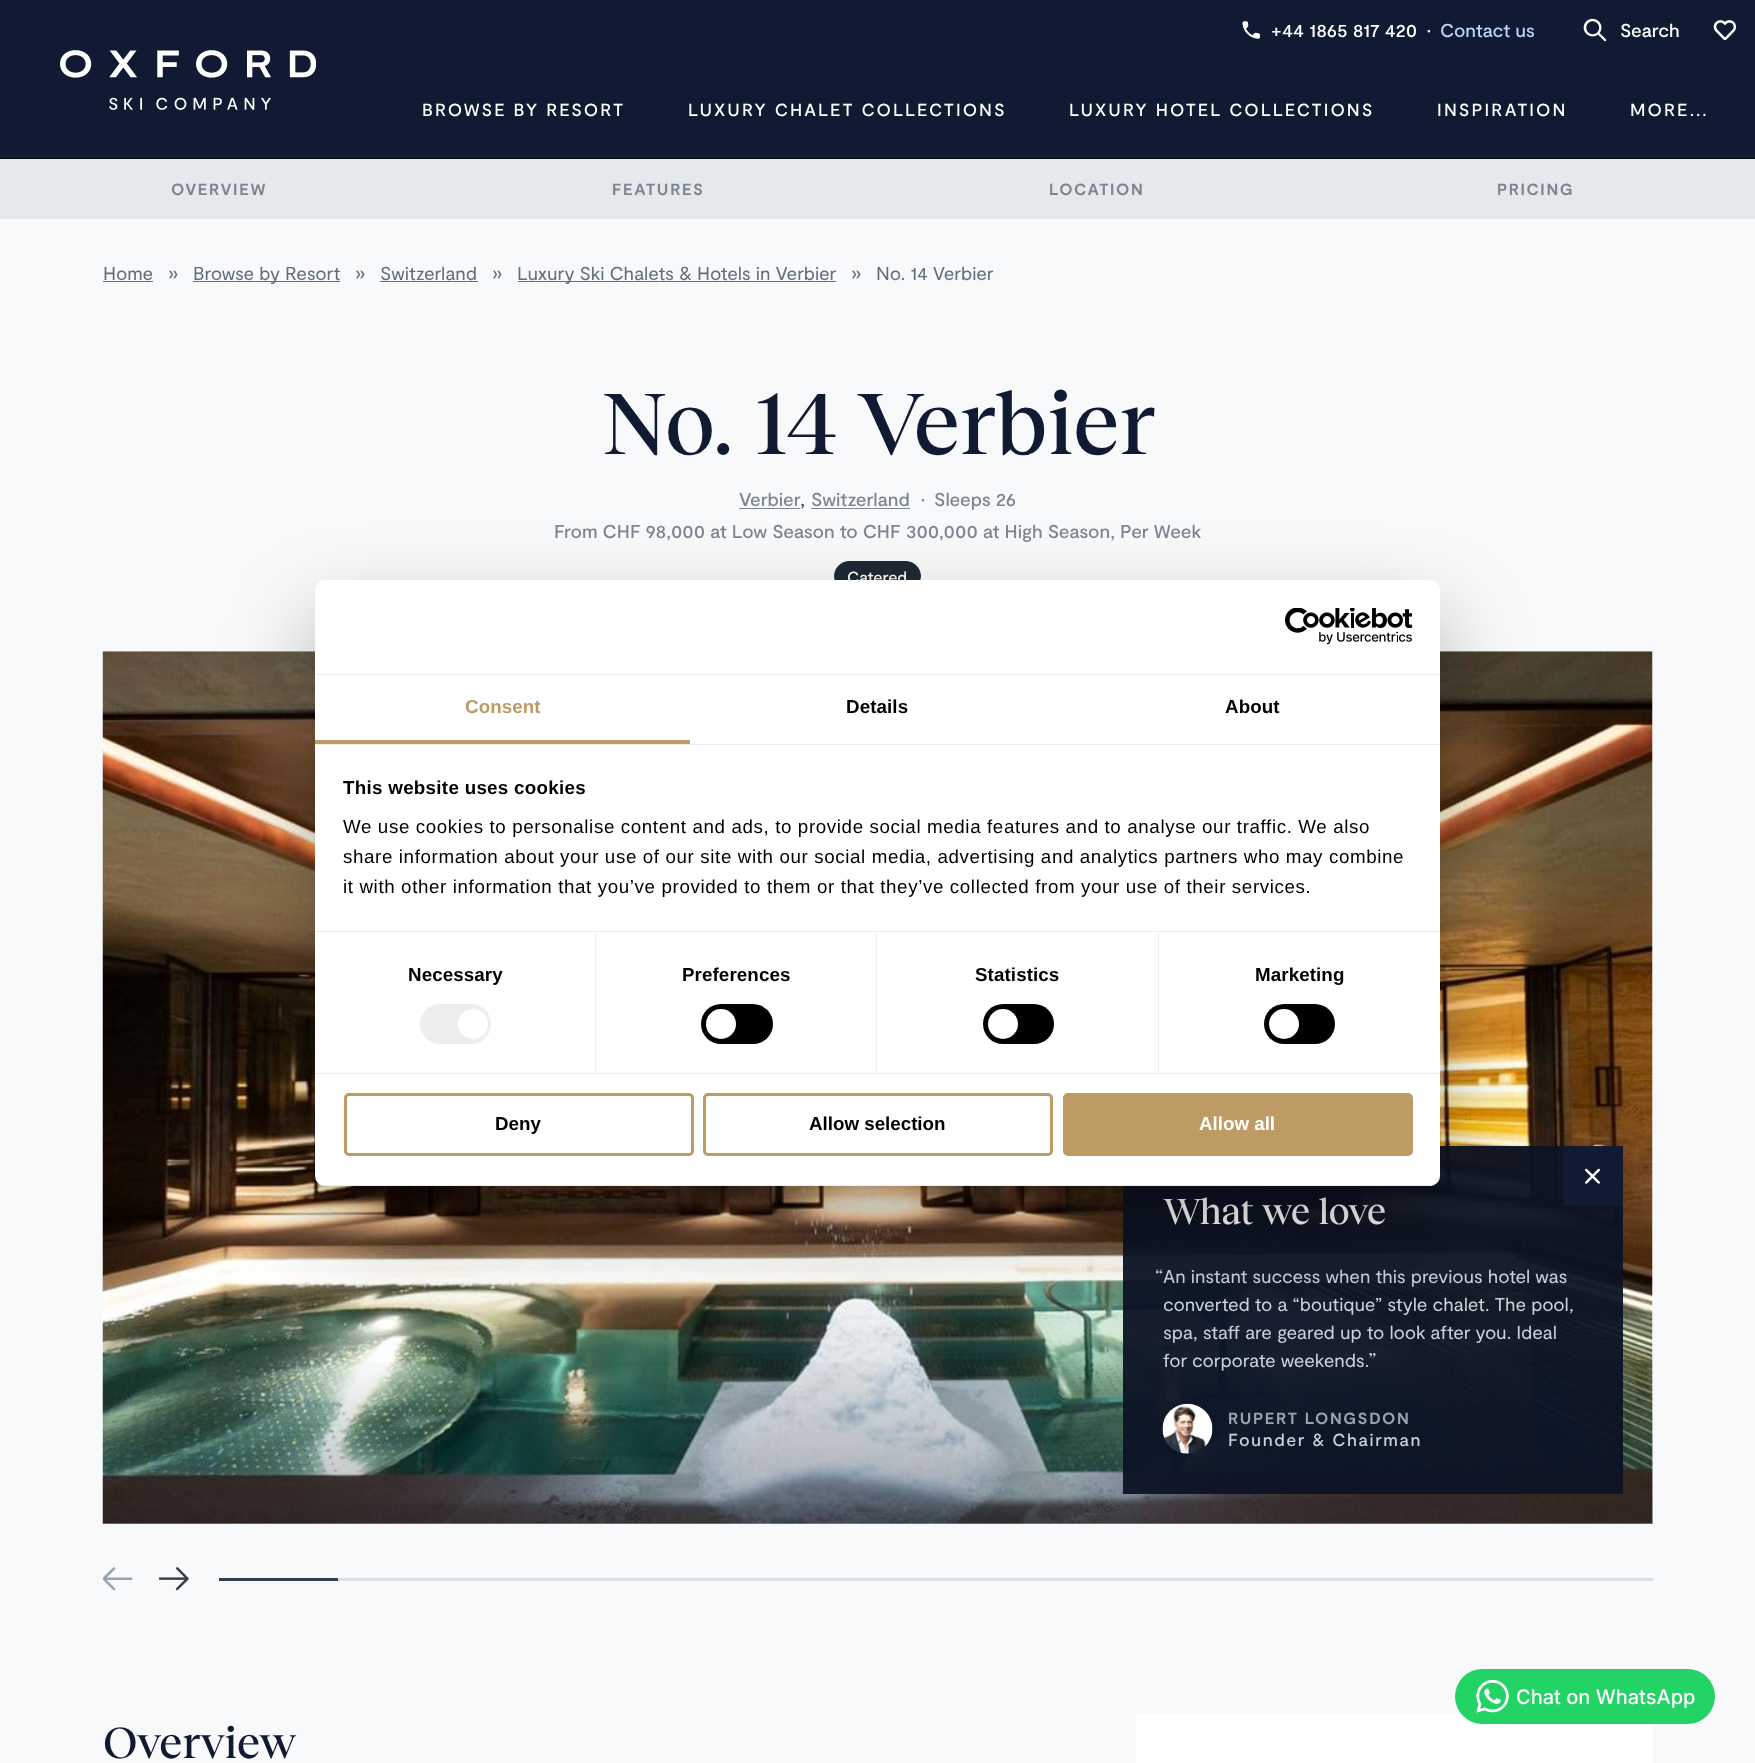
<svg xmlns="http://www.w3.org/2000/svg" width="1755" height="1763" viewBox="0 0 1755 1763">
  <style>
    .t1 { font: 500 18.75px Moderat; fill: #fff; }
    .t2 { font: 500 18.75px Moderat; fill: #bcd4fc; }
    .t3 { font: 500 17.5px Moderat; letter-spacing: 2.1px; fill: #fff; }
    .t4 { font: bold 16.25px Moderat; letter-spacing: 1.6px; fill: #7b8694; }
    .t5 { font: 18.75px Moderat; fill: #616e7d; }
    .t6 { font: 500 90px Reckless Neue; letter-spacing: -0.9px; fill: #101a32; }
    .t7 { font: 500 18.75px Moderat; fill: #7b8694; }
    .t8 { font: 21px Moderat; fill: #3e4c5a; }
    .t9 { font: 500 16.25px Moderat; fill: #fff; }
    .t10 { font: 500 37.5px Reckless Neue; letter-spacing: -0.4px; fill: #fff; }
    .t11 { font: 500 18.75px Reckless Neue; fill: #cad1d8; }
    .t12 { font: 18.75px Moderat; fill: #cad1d8; }
    .t13 { font: bold 16.25px Moderat; letter-spacing: 1.6px; fill: #99a4b1; }
    .t14 { font: 500 17.5px Moderat; letter-spacing: 1.6px; fill: #cad1d8; }
    .t15 { font: 500 45px Reckless Neue; letter-spacing: -0.5px; fill: #101a32; }
    .t16 { font: bold 18.75px Liberation Sans; letter-spacing: 0.1px; fill: #be9b64; }
    .t17 { font: bold 18.75px Liberation Sans; letter-spacing: 0.1px; fill: #000; }
    .t18 { font: bold 18.75px Liberation Sans; letter-spacing: 0.3px; fill: #000; }
    .t19 { font: 18.75px Liberation Sans; letter-spacing: 0.62px; fill: #000; }
    .t20 { font: bold 18.75px Liberation Sans; fill: #000; }
    .t21 { font: bold 18.75px Liberation Sans; fill: #fff; }
    .t22 { font: 500 20px Inter; fill: #fff; }
  </style>
  <defs>
    <linearGradient id="g1" gradientUnits="userSpaceOnUse" x1="878" y1="651" x2="878" y2="1524"><stop offset="0.6" stop-color="#000" stop-opacity="0"/><stop offset="0.8" stop-color="#0c1325" stop-opacity="0"/><stop offset="1" stop-color="#0c1325" stop-opacity="0.3"/></linearGradient>
    <clipPath id="clip1"><rect x="315" y="580" width="1125" height="606" rx="10"/></clipPath>
  </defs>
  <rect width="100%" height="100%" fill="#f8f9fa"/>
  <rect x="0" y="0" width="1755" height="158" fill="#101a32"/>
  <image x="1242" y="21" width="18" height="18" href="images/1.png"/>
  <text x="1271" y="37" class="t1">+44 1865 817 420</text>
  <text x="1427" y="37" class="t1">·</text>
  <text x="1440" y="37" class="t2">Contact us</text>
  <image x="1583" y="18" width="24" height="24" href="images/2.png"/>
  <text x="1620" y="37" class="t1">Search</text>
  <image x="1713" y="20" width="24" height="21" href="images/3.png"/>
  <rect x="0" y="158" width="1755" height="1" fill="#04060b"/>
  <image x="60" y="50" width="256" height="60" href="images/4.png"/>
  <text x="422" y="116" class="t3">BROWSE BY RESORT</text>
  <text x="688" y="116" class="t3">LUXURY CHALET COLLECTIONS</text>
  <text x="1069" y="116" class="t3">LUXURY HOTEL COLLECTIONS</text>
  <text x="1437" y="116" class="t3">INSPIRATION</text>
  <text x="1630" y="116" class="t3">MORE...</text>
  <rect x="0" y="159" width="1755" height="60" fill="#e6e9ec"/>
  <text x="171" y="195" class="t4">OVERVIEW</text>
  <text x="612" y="195" class="t4">FEATURES</text>
  <text x="1049" y="195" class="t4">LOCATION</text>
  <text x="1497" y="195" class="t4">PRICING</text>
  <text x="103" y="280" class="t5">Home</text>
  <rect x="103" y="281" width="50" height="1" fill="#616e7d"/>
  <text x="168" y="280" class="t5">»</text>
  <rect x="193" y="281" width="147" height="1" fill="#616e7d"/>
  <text x="193" y="280" class="t5">Browse by Resort</text>
  <text x="355" y="280" class="t5">»</text>
  <text x="380" y="280" class="t5">Switzerland</text>
  <rect x="380" y="281" width="98" height="1" fill="#616e7d"/>
  <text x="492" y="280" class="t5">»</text>
  <rect x="518" y="281" width="318" height="1" fill="#616e7d"/>
  <text x="517" y="280" class="t5">Luxury Ski Chalets &amp; Hotels in Verbier</text>
  <text x="851" y="280" class="t5">»</text>
  <text x="876" y="280" class="t5">No. 14 Verbier</text>
  <text x="601" y="454" class="t6">No. 14 Verbier</text>
  <text x="739" y="506" class="t7">Verbier</text>
  <rect x="739" y="508" width="61" height="1" fill="#7b8694"/>
  <text x="811" y="506" class="t7">Switzerland</text>
  <rect x="811" y="508" width="99" height="1" fill="#7b8694"/>
  <text x="921" y="506" class="t7">·</text>
  <text x="934" y="506" class="t7">Sleeps 26</text>
  <text x="800" y="506" class="t8">,</text>
  <text x="554" y="538" class="t7">From CHF 98,000 at Low Season to CHF 300,000 at High Season, Per Week</text>
  <rect x="834.5" y="561.5" width="86" height="29" rx="14.5" fill="#1f2933" stroke="#1f2933"/>
  <text x="847" y="583" class="t9">Catered</text>
  <image x="102" y="651" width="1551" height="873" href="images/5.png"/>
  <rect x="103" y="1362" width="1550" height="162" fill="url(#g1)"/>
  <rect x="1123" y="1146" width="500" height="348" fill="#0c1325f2"/>
  <rect x="1563" y="1146" width="60" height="60" fill="#101a32"/>
  <image x="1585" y="1168" width="15" height="16" href="images/6.png"/>
  <text x="1163" y="1224" class="t10">What we love</text>
  <text x="1155" y="1283" class="t11">“</text>
  <text x="1163" y="1283" class="t12">An instant success when this previous hotel was</text>
  <text x="1163" y="1311" class="t12">converted to a “boutique” style chalet. The pool,</text>
  <text x="1163" y="1339" class="t12">spa, staff are geared up to look after you. Ideal</text>
  <text x="1163" y="1367" class="t12">for corporate weekends.</text>
  <text x="1369" y="1367" class="t11">”</text>
  <image x="1162" y="1403" width="51" height="51" href="images/7.png"/>
  <text x="1228" y="1424" class="t13">RUPERT LONGSDON</text>
  <text x="1228" y="1446" class="t14">Founder &amp; Chairman</text>
  <image x="103" y="1567" width="30" height="24" href="images/8.png"/>
  <image x="159" y="1567" width="30" height="24" href="images/9.png"/>
  <rect x="219" y="1578" width="119" height="3" fill="#323f4c"/>
  <rect x="338" y="1578" width="1315" height="3" fill="#dce0e4"/>
  <text x="103" y="1758" class="t15">Overview</text>
  <rect x="1136" y="1714" width="517" height="49" fill="#fff"/>
  <rect x="315" y="620" width="1125" height="606" rx="10" fill="#0000004d" filter="blur(42.5px)"/>
  <rect x="315" y="580" width="1125" height="606" rx="10" fill="#fff"/>
  <rect x="315" y="674" width="1125" height="1" fill="#eee"/>
  <image x="1285" y="608" width="128" height="37" href="images/10.png"/>
  <rect x="315" y="744" width="1125" height="1" fill="#eee"/>
  <rect x="315" y="740" width="375" height="4" fill="#be9b64"/>
  <text x="465" y="713" class="t16">Consent</text>
  <text x="846" y="713" class="t17">Details</text>
  <text x="1225" y="713" class="t17">About</text>
  <rect x="315" y="931" width="1125" height="1" fill="#eee"/>
  <text x="343" y="794" class="t18">This website uses cookies</text>
  <text x="343" y="833" class="t19">We use cookies to personalise content and ads, to provide social media features and to analyse our traffic. We also</text>
  <text x="343" y="863" class="t19">share information about your use of our site with our social media, advertising and analytics partners who may combine</text>
  <text x="343" y="893" class="t19">it with other information that you’ve provided to them or that they’ve collected from your use of their services.</text>
  <rect x="315" y="1073" width="1125" height="1" fill="#eee"/>
  <rect x="595" y="933" width="1" height="140" fill="#eee"/>
  <text x="408" y="981" class="t17">Necessary</text>
  <rect x="420" y="1004" width="71" height="40" rx="20" fill="#eee"/>
  <circle cx="473" cy="1024" r="15" fill="#fff"/>
  <rect x="876" y="933" width="1" height="140" fill="#eee"/>
  <text x="682" y="981" class="t17">Preferences</text>
  <rect x="701" y="1004" width="72" height="40" rx="20" fill="#000"/>
  <circle cx="721" cy="1024" r="15" fill="#fff"/>
  <rect x="1158" y="933" width="1" height="140" fill="#eee"/>
  <text x="975" y="981" class="t17">Statistics</text>
  <rect x="983" y="1004" width="71" height="40" rx="20" fill="#000"/>
  <circle cx="1003" cy="1024" r="15" fill="#fff"/>
  <text x="1255" y="981" class="t17">Marketing</text>
  <rect x="1264" y="1004" width="71" height="40" rx="20" fill="#000"/>
  <circle cx="1284" cy="1024" r="15" fill="#fff"/>
  <g clip-path="url(#clip1)">
    <rect x="315" y="1185" width="1125" height="1" fill="#eee"/>
  </g>
  <rect x="345.5" y="1094.5" width="347" height="60" rx="3.5" fill="none" stroke="#be9b64" stroke-width="3"/>
  <text x="495" y="1130" class="t20">Deny</text>
  <rect x="704.5" y="1094.5" width="347" height="60" rx="3.5" fill="none" stroke="#be9b64" stroke-width="3"/>
  <text x="809" y="1130" class="t20">Allow selection</text>
  <rect x="1064.5" y="1094.5" width="347" height="60" rx="3.5" fill="#be9b64" stroke="#be9b64" stroke-width="3"/>
  <text x="1199" y="1130" class="t21">Allow all</text>
  <rect x="1455" y="1669" width="260" height="55" rx="27.5" fill="#24d366"/>
  <image x="1476" y="1679" width="33" height="34" href="images/11.png"/>
  <text x="1516" y="1704" class="t22">Chat on WhatsApp</text>
</svg>
